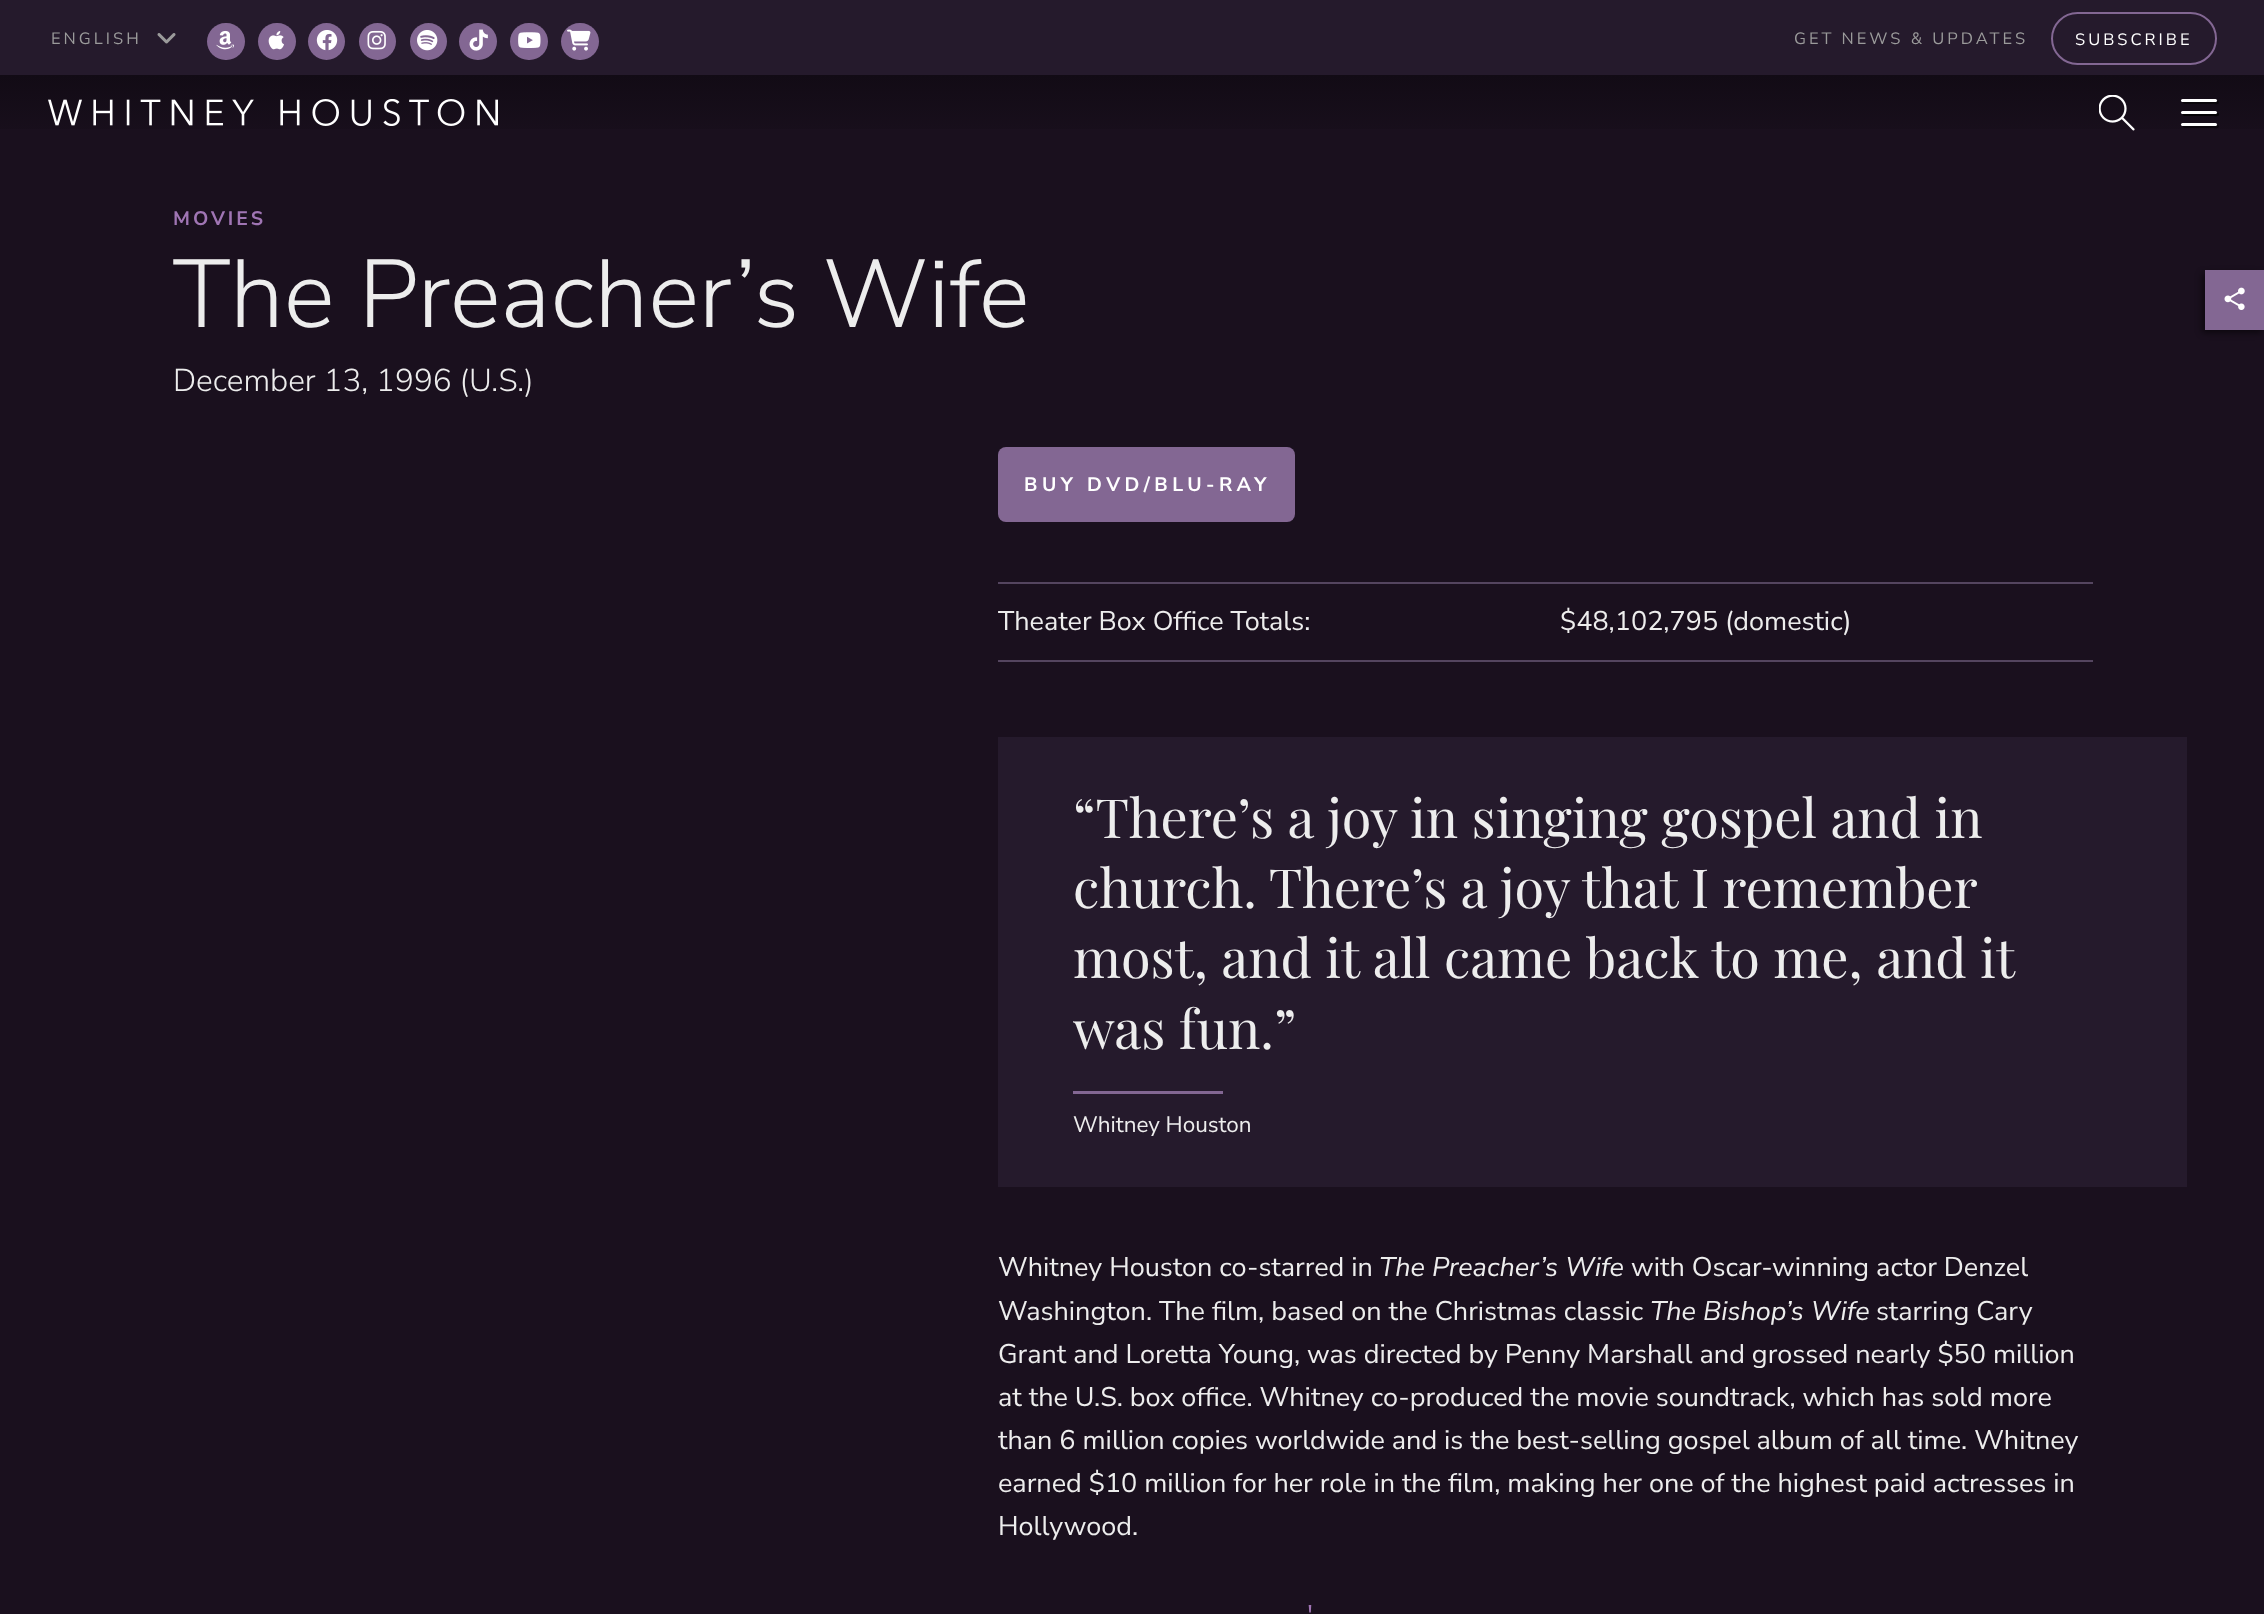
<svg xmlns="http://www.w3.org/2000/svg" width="2264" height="1614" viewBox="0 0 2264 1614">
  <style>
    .t1 { font: 16.5px Nunito Sans; letter-spacing: 3px; fill: #9b9b9b; }
    .t2 { font: 16.5px Nunito Sans; letter-spacing: 3px; fill: #fff; }
    .t3 { font: bold 19.5px Nunito Sans; letter-spacing: 3px; fill: #a075b4; }
    .t4 { font: 300 96px Nunito Sans; fill: #ededed; }
    .t5 { font: 300 31.5px Nunito Sans; fill: #ededed; }
    .t6 { font: bold 19.5px Nunito Sans; letter-spacing: 4.5px; fill: #fff; }
    .t7 { font: 27px Nunito Sans; fill: #ededed; }
    .t8 { font: 54px Playfair Display; fill: #ededed; }
    .t9 { font: 22.5px Nunito Sans; fill: #ededed; }
    .t10 { font: italic 27px Nunito Sans; fill: #ededed; }
    .t11 { font: 27px Nunito Sans; fill: #a075b4; }
  </style>
  <defs>
    <linearGradient id="g1" gradientUnits="userSpaceOnUse" x1="1133" y1="75" x2="1133" y2="150"><stop offset="0" stop-color="#120b15"/><stop offset="1" stop-color="#1a101e"/></linearGradient>
  </defs>
  <rect width="100%" height="100%" fill="#1a101e"/>
  <rect x="0" y="0" width="2264" height="75" fill="#251a2c"/>
  <text x="51" y="44" class="t1">ENGLISH</text>
  <image x="157" y="33" width="19" height="11" href="images/1.png"/>
  <rect x="207" y="23" width="38" height="37" rx="18.5" fill="#836793"/>
  <image x="216" y="30" width="19" height="20" href="images/2.png"/>
  <rect x="258" y="23" width="38" height="37" rx="18.5" fill="#836793"/>
  <image x="268" y="31" width="16" height="19" href="images/3.png"/>
  <circle cx="326.5" cy="41.5" r="18.5" fill="#836793"/>
  <image x="316" y="30" width="22" height="21" href="images/4.png"/>
  <circle cx="377.5" cy="41.5" r="18.5" fill="#836793"/>
  <image x="367" y="30" width="19" height="20" href="images/5.png"/>
  <circle cx="428.5" cy="41.5" r="18.5" fill="#836793"/>
  <image x="417" y="30" width="21" height="21" href="images/6.png"/>
  <rect x="459" y="23" width="38" height="37" rx="18.5" fill="#836793"/>
  <image x="469" y="29" width="19" height="22" href="images/7.png"/>
  <rect x="510" y="23" width="38" height="37" rx="18.5" fill="#836793"/>
  <image x="518" y="32" width="23" height="16" href="images/8.png"/>
  <rect x="561" y="23" width="38" height="37" rx="18.5" fill="#836793"/>
  <image x="567" y="29" width="24" height="22" href="images/9.png"/>
  <text x="1794" y="44" class="t1">GET NEWS &amp; UPDATES</text>
  <rect x="2052" y="13" width="164" height="51" rx="25.5" fill="none" stroke="#836793" stroke-width="2"/>
  <text x="2075" y="45" class="t2">SUBSCRIBE</text>
  <rect x="0" y="75" width="2264" height="54" fill="url(#g1)"/>
  <image x="48" y="99" width="450" height="27" href="images/10.png"/>
  <image x="2099" y="95" width="36" height="36" href="images/11.png"/>
  <path d="M2183 102C2183 103 2183.5 104 2184.5 104H2212C2215 104 2219.5 105 2219 102C2219 101 2218 101 2217 101L2216 102Z" fill="#0b070c"/>
  <rect x="2181" y="99" width="36" height="3" rx="1.5" fill="#fff"/>
  <path d="M2183 114C2183 115 2183.5 116 2184.5 116H2212C2215 116 2219.5 117 2219 114C2219 113 2218 113 2217 113L2216 114Z" fill="#0b070d"/>
  <path d="M2183 114C2183 115 2183.5 116 2184.5 116H2212C2215 116 2219.5 117 2219 114C2219 113 2218 113 2217 113L2216 114Z" fill="#00000080"/>
  <rect x="2181" y="111" width="36" height="3" rx="1.5" fill="#fff"/>
  <path d="M2183 126C2183 127 2183.5 128 2184.5 128H2212C2215 128 2219.5 129 2219 126C2219 125 2218 125 2217 125L2216 126Z" fill="#0c070e"/>
  <rect x="2181" y="123" width="36" height="3" rx="1.5" fill="#fff"/>
  <text x="173" y="225" class="t3">MOVIES</text>
  <text x="173" y="327" class="t4">The Preacher’s Wife</text>
  <text x="173" y="391" class="t5">December 13, 1996 (U.S.)</text>
  <rect x="998" y="447" width="297" height="75" rx="8" fill="#836793"/>
  <text x="1024" y="491" class="t6">BUY DVD/BLU-RAY</text>
  <rect x="998" y="582" width="1095" height="2" fill="#54455f"/>
  <rect x="998" y="660" width="1095" height="2" fill="#54455f"/>
  <text x="998" y="630" class="t7">Theater Box Office Totals:</text>
  <text x="1560" y="630" class="t7">$48,102,795 (domestic)</text>
  <rect x="998" y="737" width="1189" height="450" fill="#251a2c"/>
  <text x="1073" y="838" class="t8">“There’s a joy in singing gospel and in</text>
  <text x="1073" y="908" word-spacing="-0.25" class="t8">church. There’s a joy that I remember</text>
  <text x="1073" y="978" class="t8">most, and it all came back to me, and it</text>
  <text x="1073" y="1049" class="t8">was fun.”</text>
  <rect x="1073" y="1091" width="150" height="3" fill="#836793"/>
  <text x="1073" y="1132" class="t9">Whitney Houston</text>
  <text x="998" y="1276" class="t7">Whitney Houston co-starred in</text>
  <text x="1379" y="1276" class="t10">The Preacher’s Wife</text>
  <text x="1631" y="1276" class="t7">with Oscar-winning actor Denzel</text>
  <text x="998" y="1320" class="t7">Washington. The film, based on the Christmas classic</text>
  <text x="1650" y="1320" class="t10">The Bishop’s Wife</text>
  <text x="1876" y="1320" class="t7">starring Cary</text>
  <text x="998" y="1363" class="t7">Grant and Loretta Young, was directed by Penny Marshall and grossed nearly $50 million</text>
  <text x="998" y="1406" class="t7">at the U.S. box office. Whitney co-produced the movie soundtrack, which has sold more</text>
  <text x="998" y="1449" class="t7">than 6 million copies worldwide and is the best-selling gospel album of all time. Whitney</text>
  <text x="998" y="1492" class="t7">earned $10 million for her role in the film, making her one of the highest paid actresses in</text>
  <text x="998" y="1535" class="t7">Hollywood.</text>
  <text x="1307" y="1624" class="t11">'</text>
  <rect x="2202" y="273" width="60" height="60" fill="#00000080" filter="blur(3px)"/>
  <rect x="2205" y="270" width="59" height="60" fill="#836793"/>
  <image x="2224" y="287" width="21" height="23" href="images/12.png"/>
</svg>
